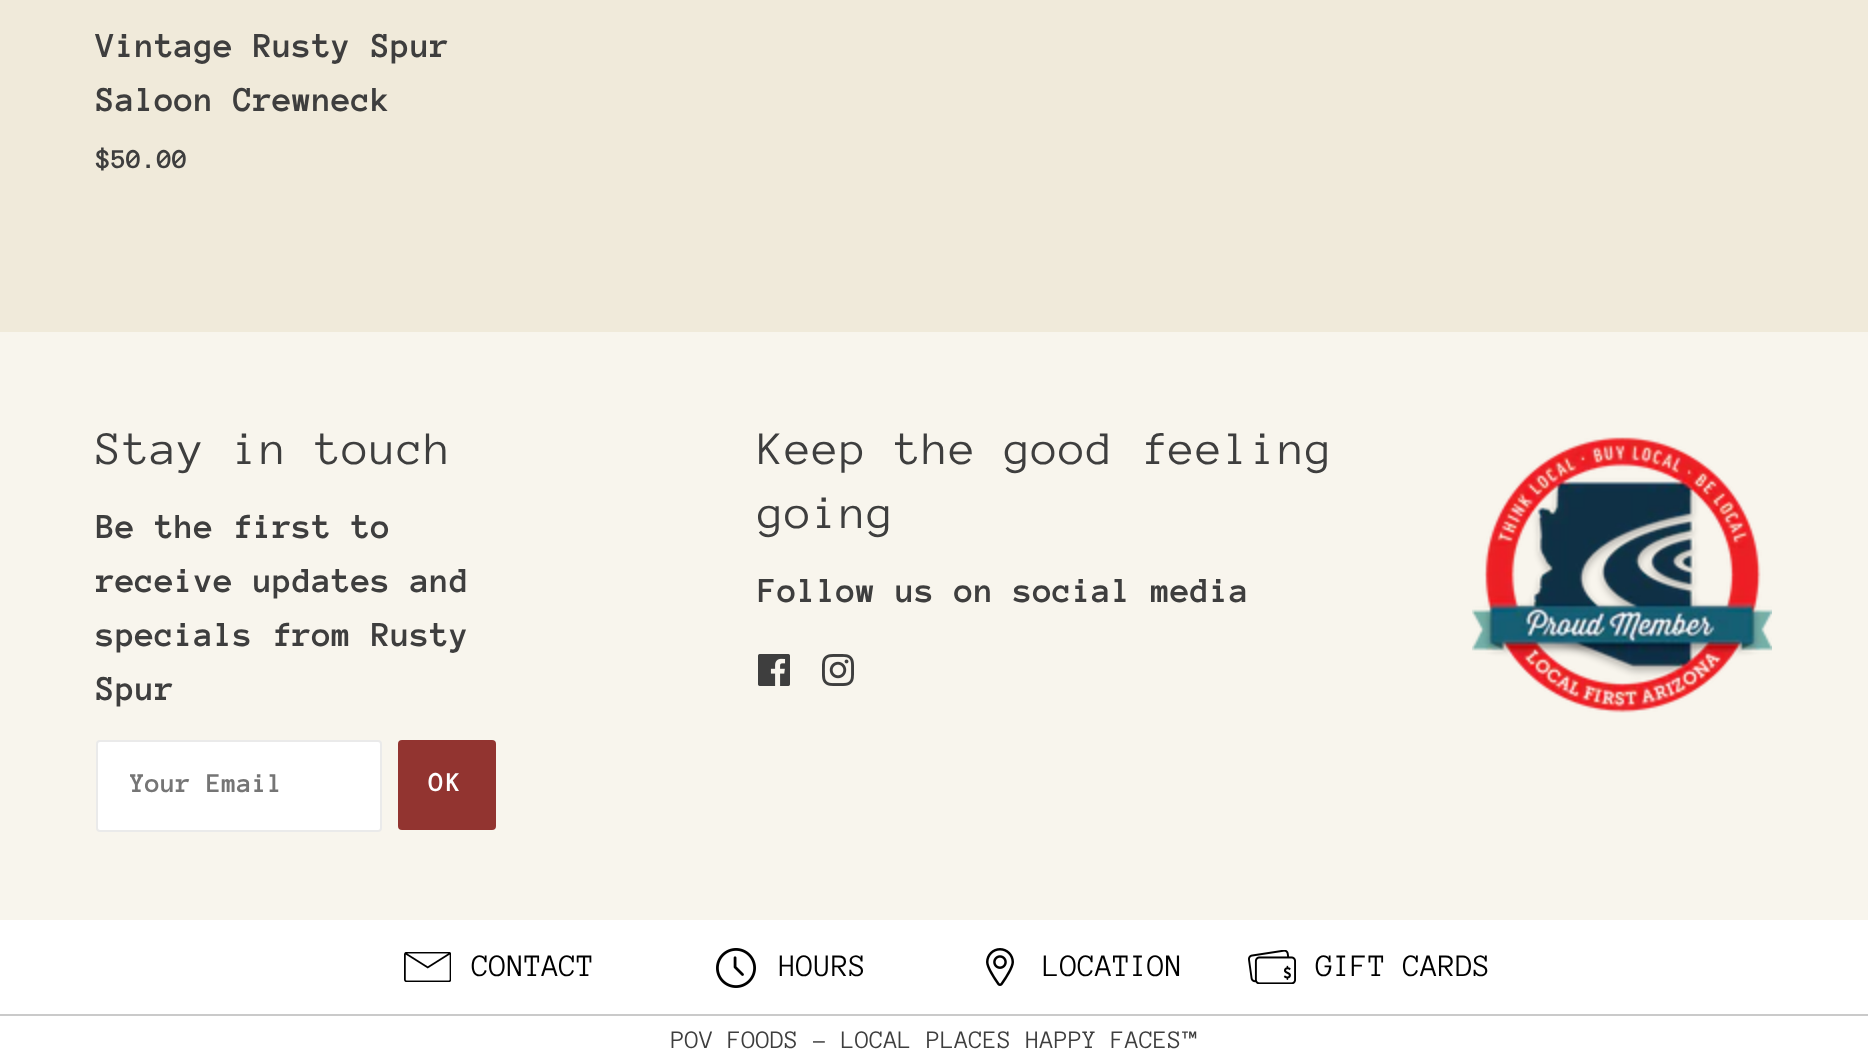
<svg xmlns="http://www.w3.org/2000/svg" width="1868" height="1061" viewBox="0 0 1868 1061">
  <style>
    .t1 { font: bold 36px Anonymous Pro; fill: #3e3e3e; }
    .t2 { font: bold 28px Anonymous Pro; fill: #3e3e3e; }
    .t3 { font: 48px Anonymous Pro; letter-spacing: 1.2px; fill: #3e3e3e; }
    .t4 { font: bold 28px Anonymous Pro; fill: #757575; }
    .t5 { font: bold 28px Anonymous Pro; letter-spacing: 2px; fill: #fff; }
    .t6 { font: 32px Anonymous Pro; fill: #000; }
    .t7 { font: 26px Anonymous Pro; fill: #3e3e3e; }
  </style>
  <defs>
    <clipPath id="clip1"><rect x="130" y="770" width="218" height="28"/></clipPath>
  </defs>
  <rect width="100%" height="100%" fill="#f0eada"/>
  <text x="96" y="57" class="t1">Vintage Rusty Spur</text>
  <text x="96" y="111" class="t1">Saloon Crewneck</text>
  <text x="96" y="168" class="t2">$50.00</text>
  <rect x="0" y="332" width="1868" height="588" fill="#f8f5ed"/>
  <text x="96" y="464" class="t3">Stay in touch</text>
  <text x="96" y="538" class="t1">Be the first to</text>
  <text x="96" y="592" class="t1">receive updates and</text>
  <text x="96" y="646" class="t1">specials from Rusty</text>
  <text x="96" y="700" class="t1">Spur</text>
  <rect x="97" y="741" width="284" height="90" rx="3" fill="#fff" stroke="#eaeaea" stroke-width="2"/>
  <g clip-path="url(#clip1)">
    <text x="130" y="792" class="t4">Your Email</text>
  </g>
  <rect x="398" y="740" width="98" height="90" rx="4" fill="#923430"/>
  <text x="429" y="791" class="t5">OK</text>
  <text x="758" y="464" class="t3">Keep the good feeling</text>
  <text x="758" y="528" class="t3">going</text>
  <text x="758" y="602" class="t1">Follow us on social media</text>
  <image x="758" y="654" width="32" height="32" href="images/1.png"/>
  <image x="822" y="654" width="32" height="32" href="images/2.png"/>
  <image x="1472" y="437" width="300" height="276" href="images/3.png"/>
  <rect x="0" y="920" width="1868" height="141" fill="#fff"/>
  <image x="404" y="952" width="47" height="30" href="images/4.png"/>
  <text x="472" y="976" class="t6">CONTACT</text>
  <image x="716" y="948" width="40" height="40" href="images/5.png"/>
  <text x="779" y="976" class="t6">HOURS</text>
  <image x="986" y="948" width="28" height="38" href="images/6.png"/>
  <text x="1043" y="976" class="t6">LOCATION</text>
  <image x="1248" y="950" width="48" height="34" href="images/7.png"/>
  <text x="1316" y="976" class="t6">GIFT CARDS</text>
  <rect x="0" y="1014" width="1868" height="2" fill="#cacaca"/>
  <text x="671" y="1048" class="t7">POV FOODS ― LOCAL PLACES HAPPY FACES™</text>
</svg>
